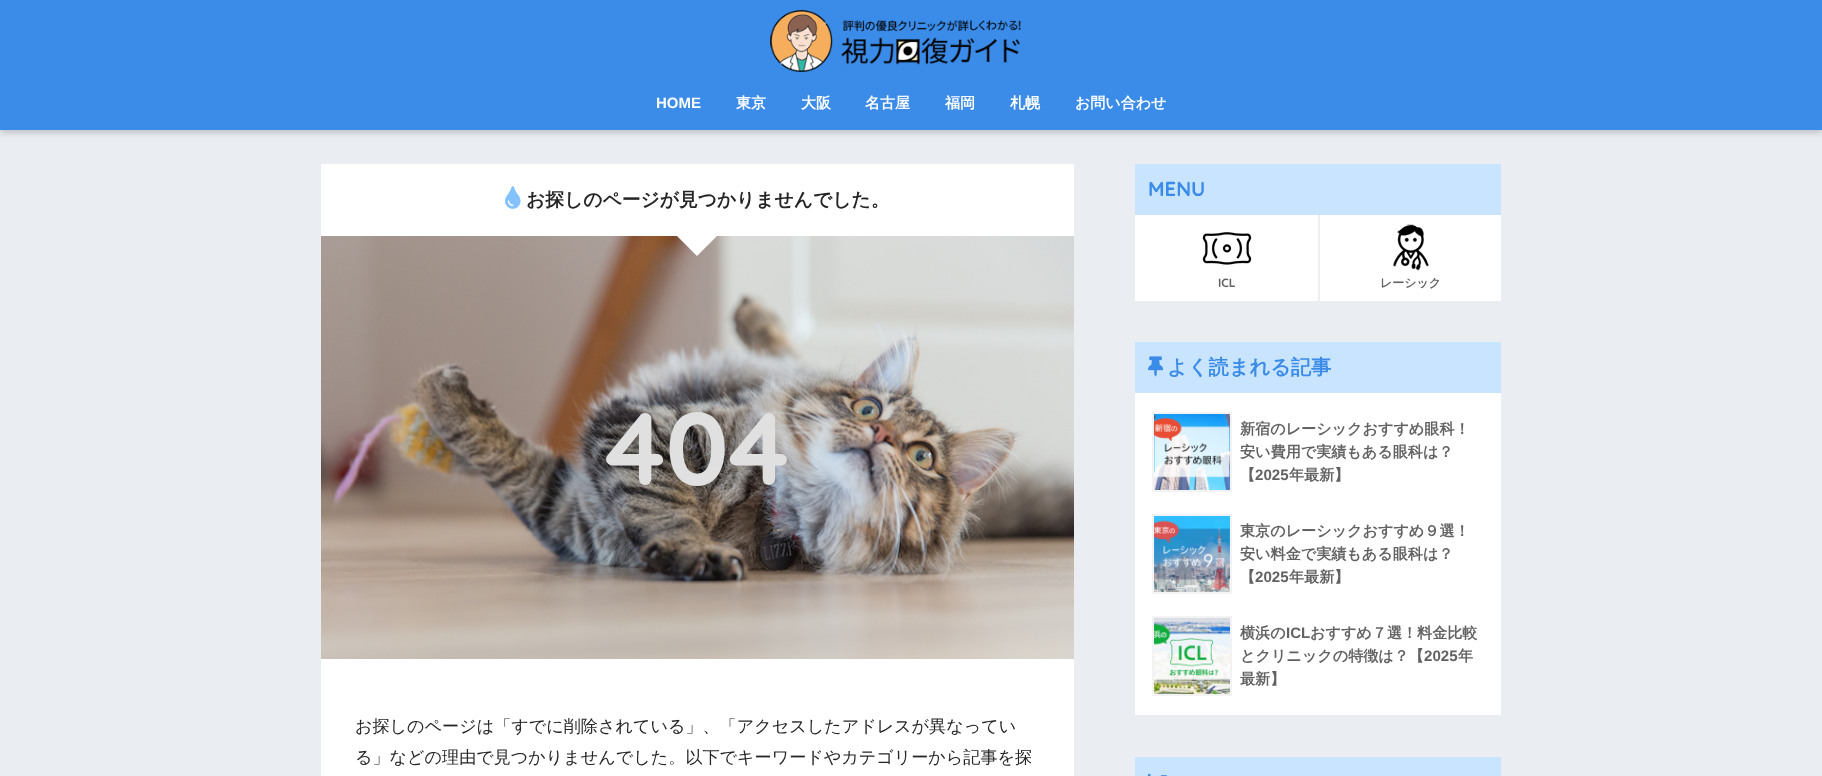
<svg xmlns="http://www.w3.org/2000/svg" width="1822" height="776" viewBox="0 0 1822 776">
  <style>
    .t1 { font: bold 15px Liberation Sans; fill: #fff; }
    .t2 { font: bold 15px WenQuanYi Zen Hei; fill: #fff; }
    .t3 { font: bold 18.8px WenQuanYi Zen Hei; fill: #252525; }
    .t4 { font: bold 103px Quicksand; fill: #e1e0e0; }
    .t5 { font: 500 17.1px WenQuanYi Zen Hei; fill: #252525; }
    .t6 { font: bold 20.25px Quicksand; fill: #3b8ce8; }
    .t7 { font: bold 12px Quicksand; fill: #626262; }
    .t8 { font: bold 12px WenQuanYi Zen Hei; fill: #626262; }
    .t9 { font: bold 20.25px WenQuanYi Zen Hei; fill: #3b8ce8; }
    .t10 { font: bold 15.1px WenQuanYi Zen Hei; fill: #626262; }
    .t11 { font: bold 15.1px Liberation Sans; fill: #626262; }
  </style>
  <rect width="100%" height="100%" fill="#eaedf2"/>
  <rect x="0" y="3" width="1822" height="130" fill="#0000002e" filter="blur(3px)"/>
  <rect x="0" y="0" width="1822" height="130" fill="#3b8ce8"/>
  <image x="770" y="10" width="251" height="62" href="images/1.png"/>
  <text x="656" y="108" class="t1">HOME</text>
  <text x="736" y="108" class="t2">東京</text>
  <text x="801" y="108" class="t2">大阪</text>
  <text x="865" y="108" class="t2">名古屋</text>
  <text x="945" y="108" class="t2">福岡</text>
  <text x="1010" y="108" class="t2">札幌</text>
  <text x="1075" y="108" class="t2">お問い合わせ</text>
  <rect x="321" y="164" width="753" height="72" fill="#fff"/>
  <image x="505" y="186" width="16" height="23" href="images/2.png"/>
  <text x="526" y="206" class="t3">お探しのページが見つかりませんでした。</text>
  <image x="321" y="236" width="753" height="423" href="images/3.png"/>
  <path d="M677 236H717L697 256Z" fill="#fff"/>
  <text x="605" y="485" class="t4">404</text>
  <rect x="321" y="659" width="753" height="117" fill="#fff"/>
  <text x="355" y="732" class="t5">お探しのページは「すでに削除されている」、「アクセスしたアドレスが異なってい</text>
  <text x="355" y="763" class="t5">る」などの理由で見つかりませんでした。以下でキーワードやカテゴリーから記事を探</text>
  <rect x="1135" y="215" width="366" height="86" fill="#fff"/>
  <rect x="1135" y="164" width="366" height="51" fill="#c8e4ff"/>
  <text x="1148" y="196" class="t6">MENU</text>
  <image x="1202" y="232" width="50" height="33" href="images/4.png"/>
  <text x="1218" y="287" class="t7">ICL</text>
  <rect x="1318" y="215" width="2" height="86" fill="#efefef"/>
  <image x="1392" y="224" width="37" height="47" href="images/5.png"/>
  <text x="1380" y="287" class="t8">レーシック</text>
  <rect x="1135" y="393" width="366" height="322" fill="#fff"/>
  <rect x="1135" y="342" width="366" height="51" fill="#c8e4ff"/>
  <image x="1148" y="356" width="16" height="21" href="images/6.png"/>
  <text x="1167" y="374" class="t9">よく読まれる記事</text>
  <rect x="1153" y="413" width="78" height="78" fill="none" stroke="#f3f3f3" stroke-width="2"/>
  <image x="1154" y="414" width="76" height="76" href="images/7.png"/>
  <text x="1240" y="434" class="t10">新宿のレーシックおすすめ眼科！</text>
  <text x="1240" y="457" class="t10">安い費用で実績もある眼科は？</text>
  <text x="1240" y="480" class="t10">【</text>
  <text x="1255" y="480" class="t11">2025</text>
  <text x="1289" y="480" class="t10">年最新】</text>
  <rect x="1153" y="515" width="78" height="78" fill="none" stroke="#f3f3f3" stroke-width="2"/>
  <image x="1154" y="516" width="76" height="76" href="images/8.png"/>
  <text x="1240" y="536" class="t10">東京のレーシックおすすめ９選！</text>
  <text x="1240" y="559" class="t10">安い料金で実績もある眼科は？</text>
  <text x="1240" y="582" class="t10">【</text>
  <text x="1255" y="582" class="t11">2025</text>
  <text x="1289" y="582" class="t10">年最新】</text>
  <rect x="1153" y="617" width="78" height="78" fill="none" stroke="#f3f3f3" stroke-width="2"/>
  <image x="1154" y="618" width="76" height="76" href="images/9.png"/>
  <text x="1240" y="638" class="t10">横浜の</text>
  <text x="1286" y="638" class="t11">ICL</text>
  <text x="1310" y="638" class="t10">おすすめ７選！料金比較</text>
  <text x="1240" y="661" class="t10">とクリニックの特徴は？【</text>
  <text x="1424" y="661" class="t11">2025</text>
  <text x="1458" y="661" class="t10">年</text>
  <text x="1240" y="684" class="t10">最新】</text>
  <rect x="1135" y="757" width="366" height="19" fill="#c8e4ff"/>
  <image x="1148" y="773" width="19" height="3" href="images/10.png"/>
</svg>
